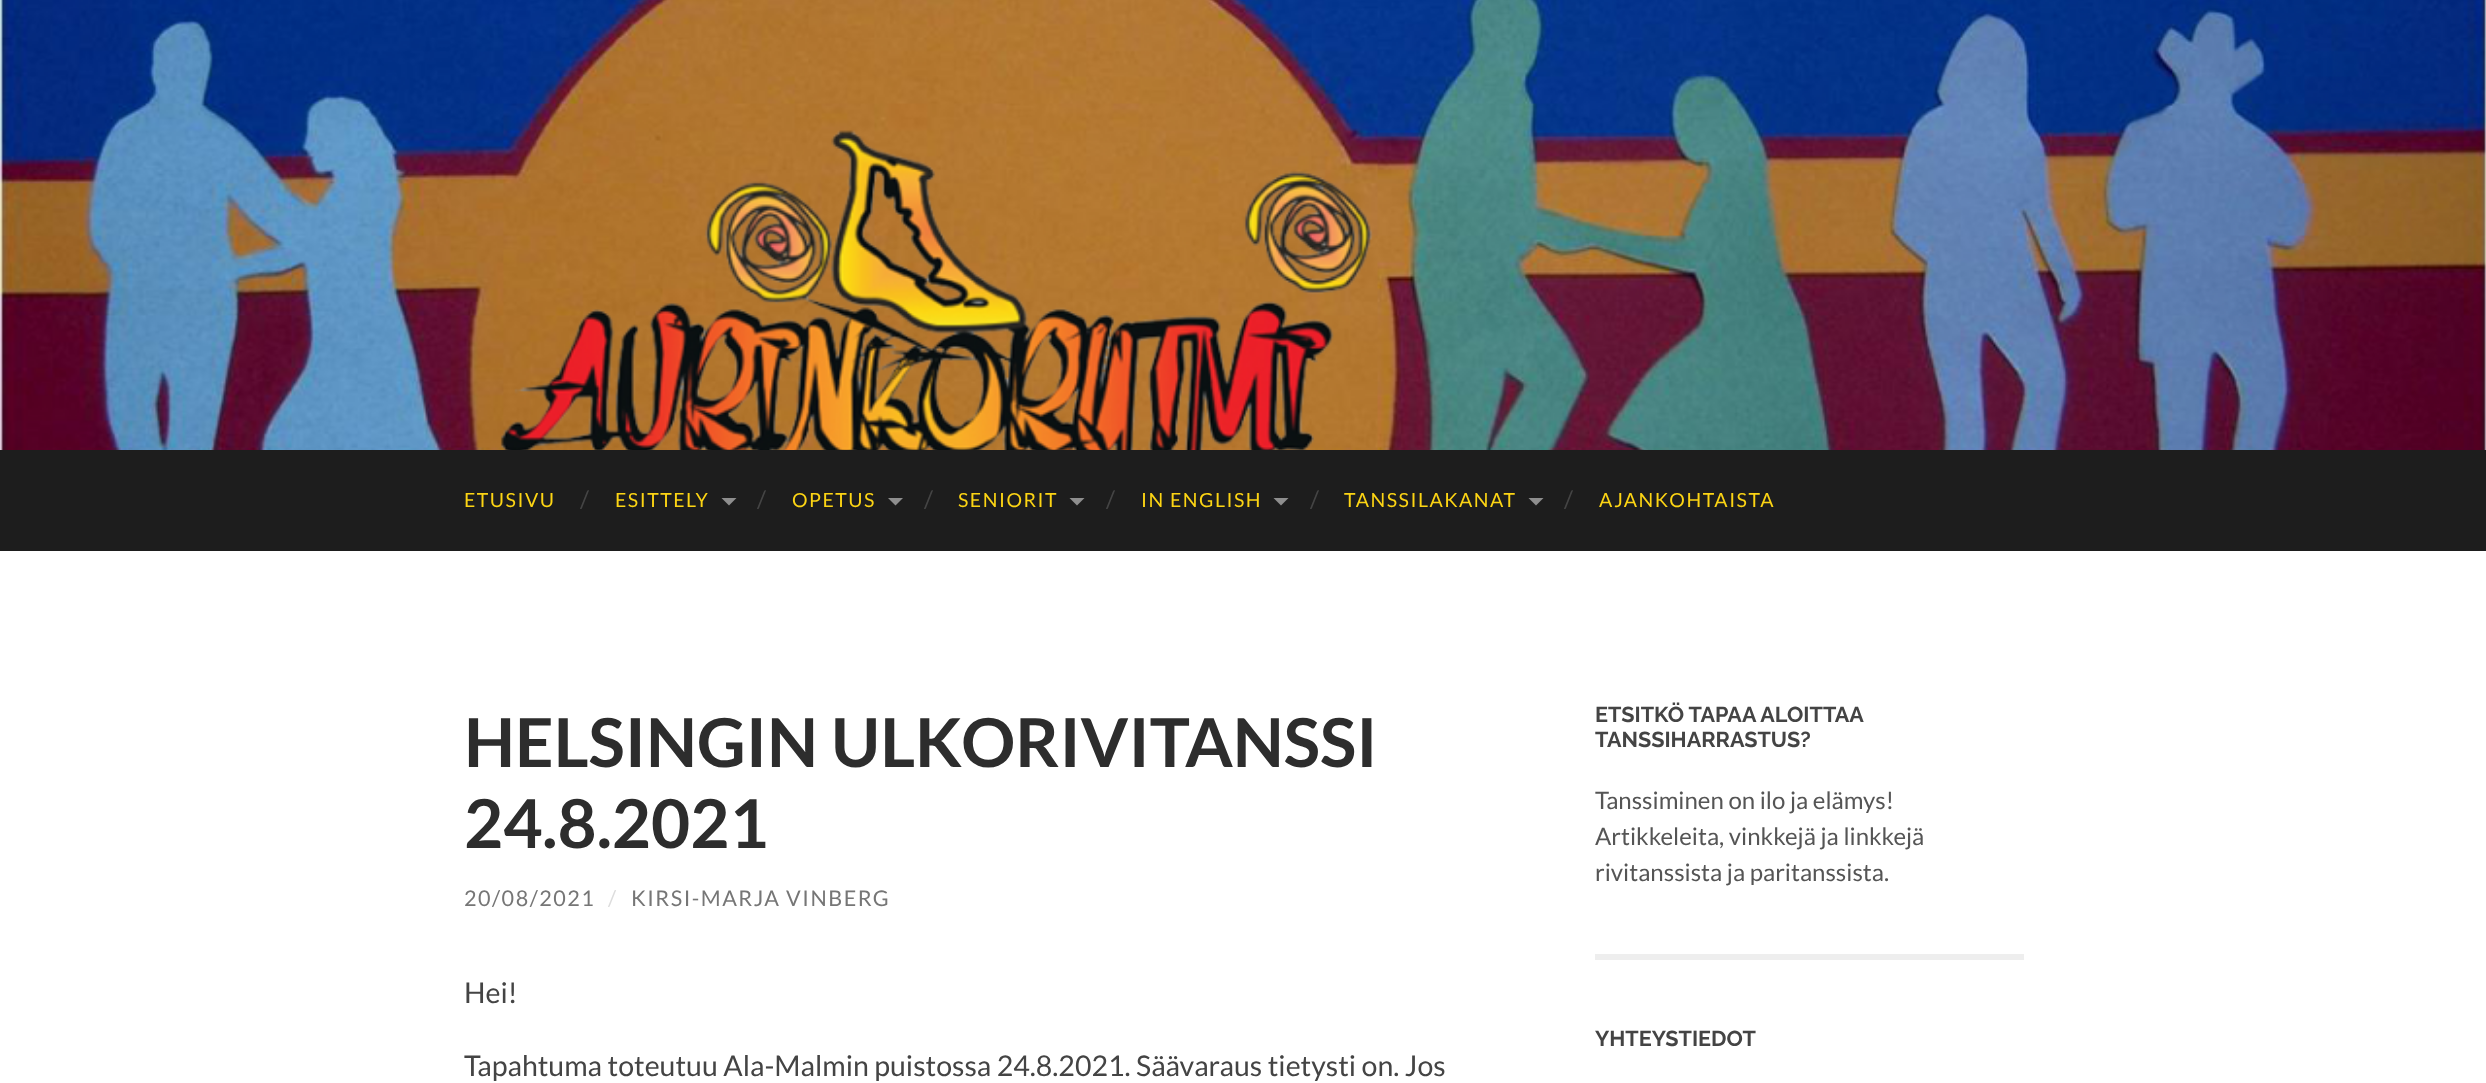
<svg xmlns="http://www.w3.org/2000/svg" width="2486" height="1083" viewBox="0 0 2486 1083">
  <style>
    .t1 { font: 19.5px Lato; letter-spacing: 1.5px; fill: #fcd414; }
    .t2 { font: 24px Lato; fill: #444; }
    .t3 { font: bold 67.5px Lato; fill: #2d2d2d; }
    .t4 { font: 21.6px Lato; letter-spacing: 1.5px; fill: #767676; }
    .t5 { font: 21.6px Lato; letter-spacing: 1.5px; fill: #ddd; }
    .t6 { font: 28.5px Lato; fill: #444; }
    .t7 { font: 100 21.6px Raleway; fill: #444; }
    .t8 { font: 24px Lato; fill: #555; }
  </style>
  <rect width="100%" height="100%" fill="#fff"/>
  <image x="0" y="0" width="2486" height="450" href="images/1.png"/>
  <rect x="0" y="450" width="2486" height="101" fill="#1d1d1d"/>
  <text x="464" y="507" class="t1">ETUSIVU</text>
  <text x="580" y="508" class="t2">/</text>
  <text x="615" y="507" class="t1">ESITTELY</text>
  <path d="M721.5 498H736.5L729 505.5Z" fill="#8e8e8e"/>
  <text x="757" y="508" class="t2">/</text>
  <text x="792" y="507" class="t1">OPETUS</text>
  <path d="M888 498H903L895.5 505.5Z" fill="#8e8e8e"/>
  <text x="924" y="508" class="t2">/</text>
  <text x="958" y="507" class="t1">SENIORIT</text>
  <path d="M1069.5 498H1084.5L1077 505.5Z" fill="#8e8e8e"/>
  <text x="1106" y="508" class="t2">/</text>
  <text x="1141" y="507" class="t1">IN ENGLISH</text>
  <path d="M1273.5 498H1288.5L1281 505.5Z" fill="#8e8e8e"/>
  <text x="1310" y="508" class="t2">/</text>
  <text x="1344" y="507" class="t1">TANSSILAKANAT</text>
  <path d="M1528.5 498H1543.5L1536 505.5Z" fill="#8e8e8e"/>
  <text x="1564" y="508" class="t2">/</text>
  <text x="1599" y="507" class="t1">AJANKOHTAISTA</text>
  <text x="464" y="767" class="t3">HELSINGIN ULKORIVITANSSI</text>
  <text x="464" y="848" class="t3">24.8.2021</text>
  <text x="464" y="906" class="t4">20/08/2021</text>
  <text x="608" y="906" class="t5">/</text>
  <text x="631" y="906" class="t4">KIRSI-MARJA VINBERG</text>
  <text x="464" y="1003" class="t6">Hei!</text>
  <text x="464" y="1076" class="t6">Tapahtuma toteutuu Ala-Malmin puistossa 24.8.2021. Säävaraus tietysti on. Jos</text>
  <rect x="1595" y="954" width="429" height="6" fill="#eee"/>
  <text x="1595" y="722" class="t7">ETSITKÖ TAPAA ALOITTAA</text>
  <text x="1595" y="747" class="t7">TANSSIHARRASTUS?</text>
  <text x="1595" y="809" class="t8">Tanssiminen on ilo ja elämys!</text>
  <text x="1595" y="845" class="t8">Artikkeleita, vinkkejä ja linkkejä</text>
  <text x="1595" y="881" class="t8">rivitanssista ja paritanssista.</text>
  <text x="1595" y="1046" class="t7">YHTEYSTIEDOT</text>
</svg>
